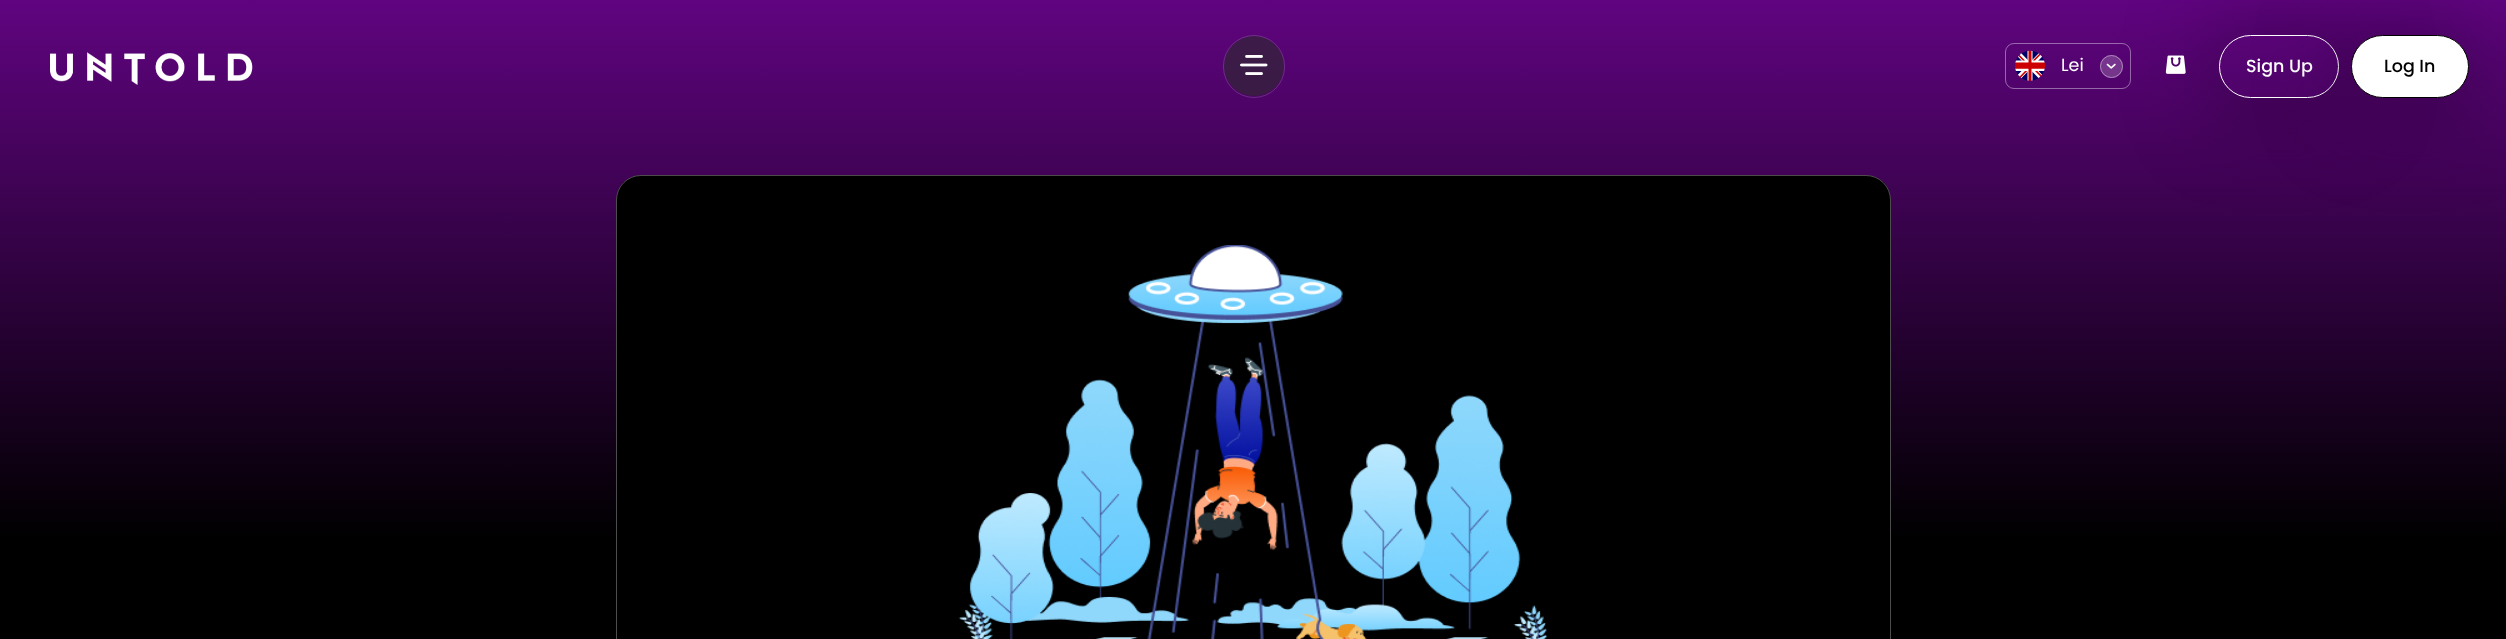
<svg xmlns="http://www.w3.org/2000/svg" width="2506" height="639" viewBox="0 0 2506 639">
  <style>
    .t1 { font: 17.5px Poppins; fill: #fff; }
    .t2 { font: 500 17.5px Poppins; fill: #fff; }
    .t3 { font: 500 17.5px Poppins; fill: #000; }
  </style>
  <defs>
    <linearGradient id="g1" gradientUnits="userSpaceOnUse" x1="1253" y1="0" x2="1253" y2="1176"><stop offset="0" stop-color="#600480"/><stop offset="0.46" stop-color="#000"/><stop offset="1" stop-color="#000"/></linearGradient>
    <clipPath id="clip1"><path d="M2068 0H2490V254H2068ZM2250.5 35H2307.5C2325 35 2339 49 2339 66.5C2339 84 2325 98 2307.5 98H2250.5C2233 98 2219 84 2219 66.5C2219 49 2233 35 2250.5 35Z" clip-rule="evenodd"/></clipPath>
  </defs>
  <rect width="100%" height="100%" fill="#fff"/>
  <rect x="0" y="0" width="2506" height="639" fill="url(#g1)"/>
  <rect x="616" y="175" width="1275" height="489" rx="25" fill="#000"/>
  <rect x="616.5" y="175.5" width="1274" height="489" rx="24.5" fill="none" stroke="#ffffff4d"/>
  <image x="958" y="245" width="590" height="394" href="images/1.png"/>
  <image x="50" y="52" width="203" height="33" href="images/2.png"/>
  <circle cx="1254" cy="66" r="30" fill="#2b2b2b99"/>
  <rect x="1223.5" y="35.5" width="61" height="62" rx="30.5" fill="none" stroke="#ffffff29"/>
  <image x="1240" y="55" width="28" height="20" href="images/3.png"/>
  <g clip-path="url(#clip1)">
    <rect x="2219" y="40" width="120" height="63" rx="31.5" fill="#00000080" filter="blur(50px)"/>
  </g>
  <rect x="2005.5" y="43.5" width="125" height="45" rx="8.5" fill="none" stroke="#ffffff66"/>
  <image x="2015" y="50" width="30" height="31" href="images/4.png"/>
  <text x="2061" y="71" class="t1">Lei</text>
  <circle cx="2111.5" cy="66.5" r="11.5" fill="#ffffff33"/>
  <circle cx="2111.5" cy="66.5" r="11" fill="none" stroke="#ffffff66"/>
  <image x="2106" y="63" width="10" height="6" href="images/5.png"/>
  <image x="2165" y="55" width="21" height="19" href="images/6.png"/>
  <rect x="2219.5" y="35.5" width="119" height="62" rx="31" fill="none" stroke="#fff"/>
  <text x="2246" y="72" class="t2">Sign Up</text>
  <rect x="2351" y="40" width="118" height="63" rx="31.5" fill="#00000080" filter="blur(50px)"/>
  <rect x="2351.5" y="35.5" width="117" height="62" rx="31" fill="#fff" stroke="#000"/>
  <text x="2384" y="72" class="t3">Log In</text>
</svg>
